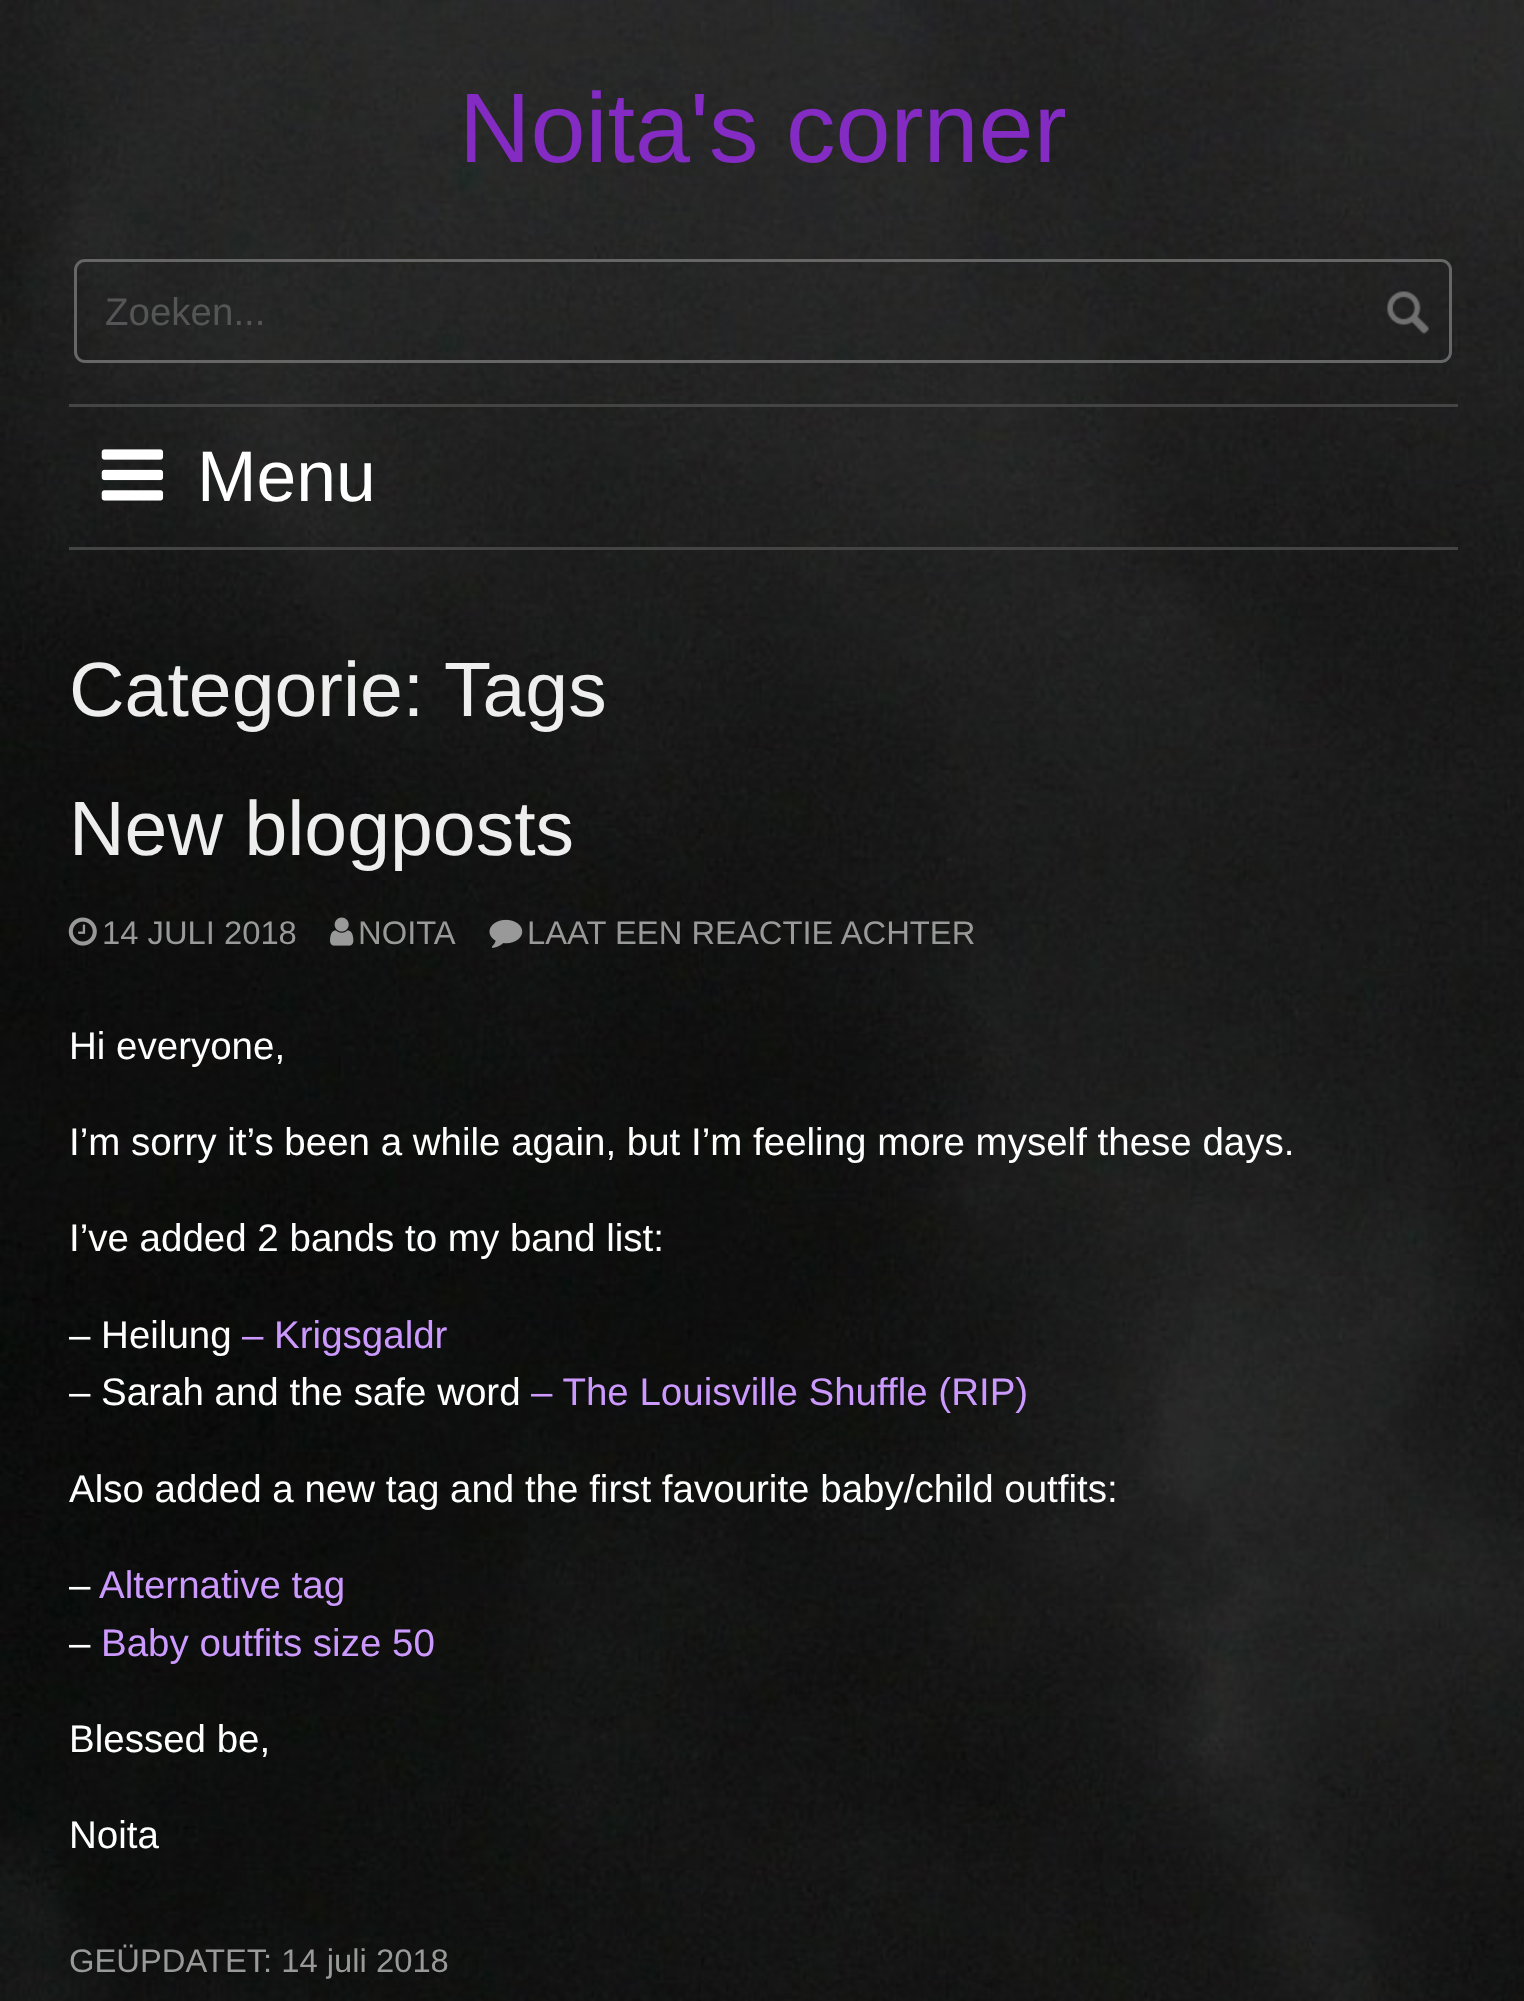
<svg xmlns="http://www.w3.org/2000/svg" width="1524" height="2001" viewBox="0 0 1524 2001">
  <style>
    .t1 { font: 99px Liberation Sans; fill: #842bc4; }
    .t2 { font: 38.5px Liberation Sans; fill: #555; }
    .t3 { font: 71.5px Liberation Sans; fill: #fff; }
    .t4 { font: 77px Liberation Sans; fill: #eee; }
    .t5 { font: 32.75px Liberation Sans; fill: #999; }
    .t6 { font: 38.5px Liberation Sans; fill: #fff; }
    .t7 { font: 38.5px Liberation Sans; fill: #c9f; }
  </style>
  <rect width="100%" height="100%" fill="#fff"/>
  <image x="0" y="0" width="1524" height="2001" href="images/1.png"/>
  <text x="459" y="162" class="t1">Noita's corner</text>
  <rect x="75.5" y="260.5" width="1375" height="101" rx="9.5" fill="none" stroke="#666" stroke-width="3"/>
  <text x="105" y="325" class="t2">Zoeken...</text>
  <image x="1387" y="291" width="42" height="44" href="images/2.png"/>
  <rect x="69" y="404" width="1389" height="3" fill="#444"/>
  <rect x="69" y="547" width="1389" height="3" fill="#444"/>
  <image x="101" y="449" width="63" height="52" href="images/3.png"/>
  <text x="197" y="501" class="t3">Menu</text>
  <text x="69" y="716" class="t4">Categorie:</text>
  <text x="444" y="716" class="t4">Tags</text>
  <text x="69" y="855" class="t4">New blogposts</text>
  <image x="68" y="917" width="29" height="29" href="images/4.png"/>
  <text x="102" y="944" class="t5">14 JULI 2018</text>
  <image x="330" y="917" width="24" height="29" href="images/5.png"/>
  <text x="358" y="944" class="t5">NOITA</text>
  <image x="489" y="919" width="34" height="29" href="images/6.png"/>
  <text x="527" y="944" class="t5">LAAT EEN REACTIE ACHTER</text>
  <text x="69" y="1059" class="t6">Hi everyone,</text>
  <text x="69" y="1155" class="t6">I’m sorry it’s been a while again, but I’m feeling more myself these days.</text>
  <text x="69" y="1251" class="t6">I’ve added 2 bands to my band list:</text>
  <text x="69" y="1348" class="t6">– Heilung</text>
  <text x="242" y="1348" class="t7">– Krigsgaldr</text>
  <text x="69" y="1405" class="t6">– Sarah and the safe word</text>
  <text x="531" y="1405" class="t7">– The Louisville Shuffle (RIP)</text>
  <text x="69" y="1502" class="t6">Also added a new tag and the first favourite baby/child outfits:</text>
  <text x="69" y="1598" class="t6">–</text>
  <text x="99" y="1598" class="t7">Alternative tag</text>
  <text x="69" y="1656" class="t6">–</text>
  <text x="101" y="1656" class="t7">Baby outfits size 50</text>
  <text x="69" y="1752" class="t6">Blessed be,</text>
  <text x="69" y="1848" class="t6">Noita</text>
  <text x="69" y="1972" class="t5">GEÜPDATET: 14 juli 2018</text>
</svg>
